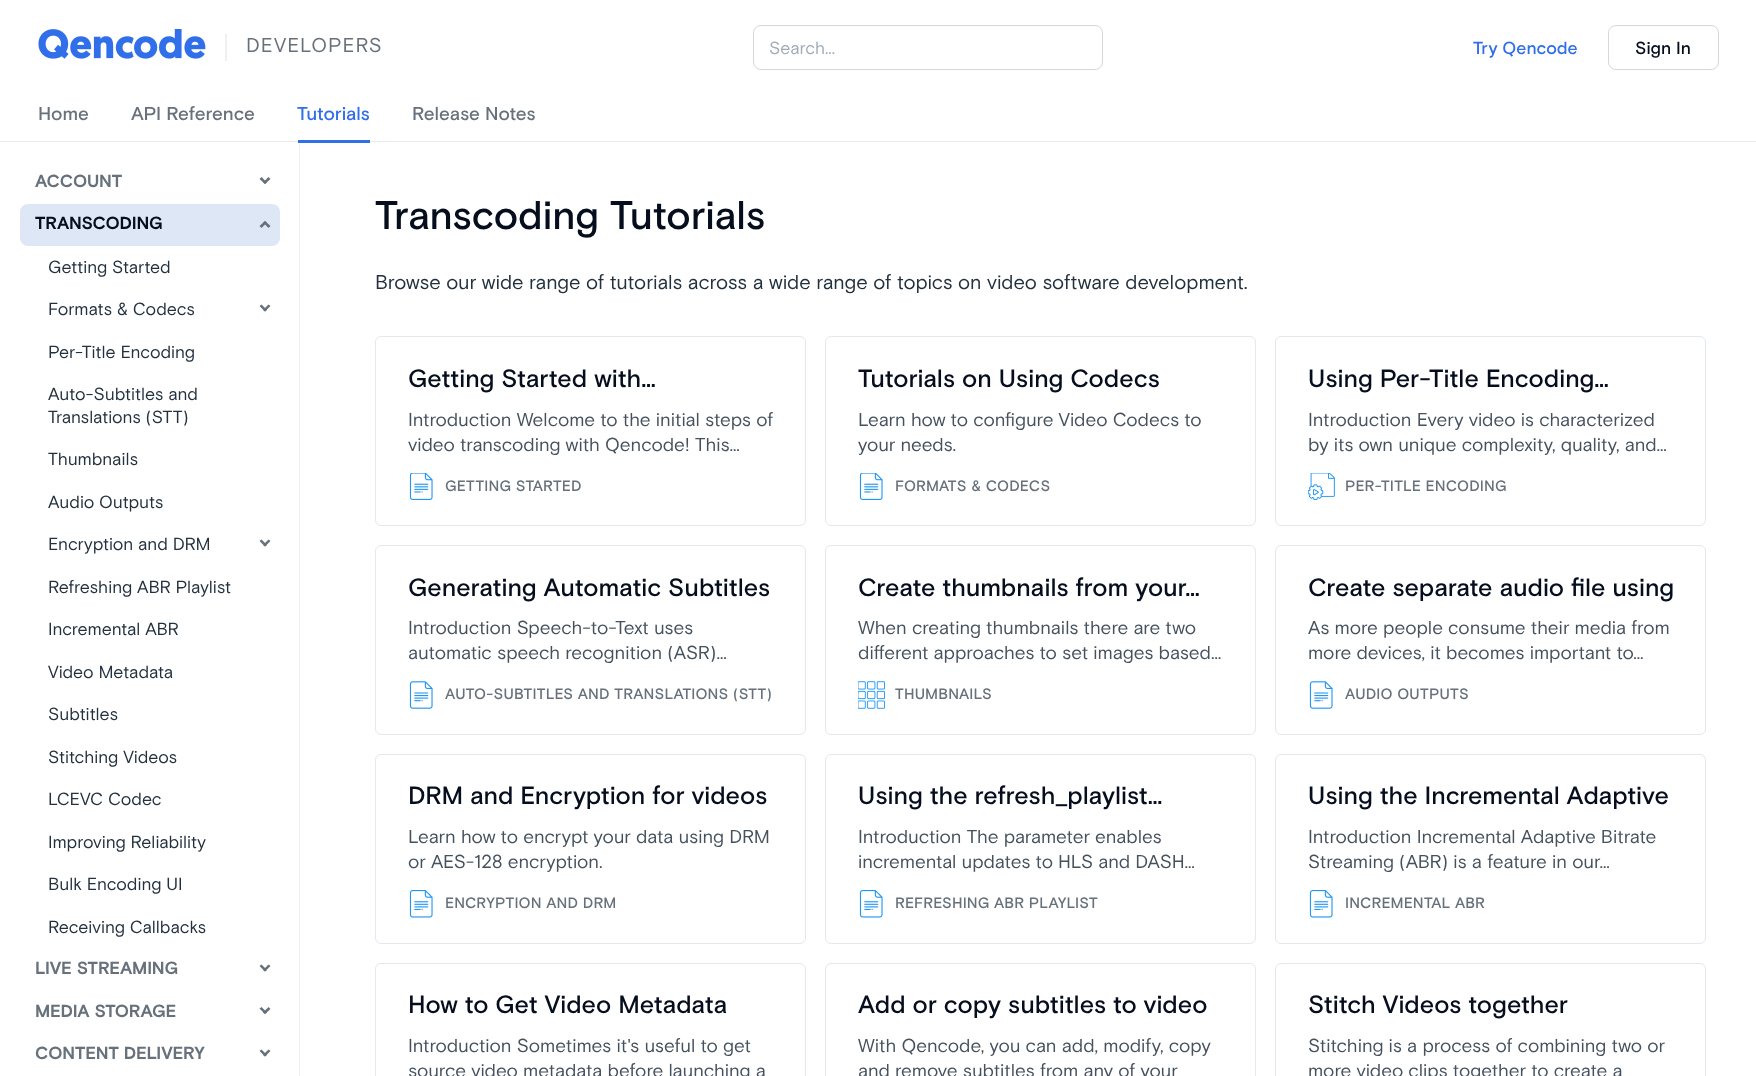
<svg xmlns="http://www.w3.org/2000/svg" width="1756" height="1076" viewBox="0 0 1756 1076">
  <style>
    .t1 { font: 20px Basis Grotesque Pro; letter-spacing: 1.25px; fill: #67717b; }
    .t2 { font: 17.5px Basis Grotesque Pro; fill: #a1abb5; }
    .t3 { font: 500 17.5px Basis Grotesque Pro; fill: #316fea; }
    .t4 { font: 500 17.5px Basis Grotesque Pro; fill: #060e1e; }
    .t5 { font: 500 18.75px Basis Grotesque Pro; fill: #67717b; }
    .t6 { font: 500 18.75px Basis Grotesque Pro; fill: #316fea; }
    .t7 { font: bold 17.5px Basis Grotesque Pro; fill: #67717b; }
    .t8 { font: bold 17.5px Basis Grotesque Pro; fill: #060e1e; }
    .t9 { font: 17.5px Basis Grotesque Pro; fill: #23313f; }
    .t10 { font: 500 40px Basis Grotesque Pro; fill: #060e1e; }
    .t11 { font: 20px Basis Grotesque Pro; fill: #23313f; }
    .t12 { font: 500 25px Basis Grotesque Pro; fill: #060e1e; }
    .t13 { font: 18.75px Basis Grotesque Pro; fill: #45515d; }
    .t14 { font: 500 15px Basis Grotesque Pro; letter-spacing: 0.3px; fill: #67717b; }
  </style>
  <rect width="100%" height="100%" fill="#fff"/>
  <rect x="0" y="141" width="1756" height="1" fill="#e9ebed"/>
  <image x="38" y="29" width="168" height="30" href="images/1.png"/>
  <path d="M226 34V61" fill="none" stroke="#e3e6e9" stroke-width="1.2"/>
  <text x="246" y="52" class="t1">DEVELOPERS</text>
  <rect x="753.5" y="25.5" width="349" height="44" rx="7.5" fill="none" stroke="#d3d8dc"/>
  <text x="769" y="54" class="t2">Search...</text>
  <text x="1473" y="54" class="t3">Try Qencode</text>
  <rect x="1608.5" y="25.5" width="110" height="44" rx="7.5" fill="none" stroke="#d3d8dc"/>
  <text x="1635" y="54" class="t4">Sign In</text>
  <text x="38" y="120" class="t5">Home</text>
  <text x="131" y="120" class="t5">API Reference</text>
  <rect x="298" y="140" width="72" height="3" fill="#316fea"/>
  <text x="297" y="120" class="t6">Tutorials</text>
  <text x="412" y="120" class="t5">Release Notes</text>
  <rect x="299" y="143" width="1" height="933" fill="#eee"/>
  <text x="35" y="187" class="t7">ACCOUNT</text>
  <path d="M268.5 177L270.5 179L265 184L263 182.5Z" fill="#67717b"/>
  <path d="M261.5 177L267 182.5L265 184L259.5 179Z" fill="#67717b"/>
  <rect x="20" y="204" width="260" height="42" rx="8" fill="#dee7f6"/>
  <text x="35" y="229" class="t8">TRANSCODING</text>
  <path d="M261.5 228L259.5 226L265 221L267 222.5Z" fill="#67717b"/>
  <path d="M268.5 228L263 222.5L265 221L270.5 226Z" fill="#67717b"/>
  <text x="48" y="273" class="t9">Getting Started</text>
  <text x="48" y="315" class="t9">Formats &amp; Codecs</text>
  <path d="M268.5 304.5L270.5 306L265 311.5L263 310Z" fill="#67717b"/>
  <path d="M261.5 304.5L267 310L265 311.5L259.5 306Z" fill="#67717b"/>
  <text x="48" y="358" class="t9">Per-Title Encoding</text>
  <text x="48" y="400" class="t9">Auto-Subtitles and</text>
  <text x="48" y="423" class="t9">Translations (STT)</text>
  <text x="48" y="465" class="t9">Thumbnails</text>
  <text x="48" y="508" class="t9">Audio Outputs</text>
  <text x="48" y="550" class="t9">Encryption and DRM</text>
  <path d="M268.5 539.5L270.5 541L265 546.5L263 545Z" fill="#67717b"/>
  <path d="M261.5 539.5L267 545L265 546.5L259.5 541Z" fill="#67717b"/>
  <text x="48" y="593" class="t9">Refreshing ABR Playlist</text>
  <text x="48" y="635" class="t9">Incremental ABR</text>
  <text x="48" y="678" class="t9">Video Metadata</text>
  <text x="48" y="720" class="t9">Subtitles</text>
  <text x="48" y="763" class="t9">Stitching Videos</text>
  <text x="48" y="805" class="t9">LCEVC Codec</text>
  <text x="48" y="848" class="t9">Improving Reliability</text>
  <text x="48" y="890" class="t9">Bulk Encoding UI</text>
  <text x="48" y="933" class="t9">Receiving Callbacks</text>
  <text x="35" y="974" class="t7">LIVE STREAMING</text>
  <path d="M268.5 964.5L270.5 966L265 971.5L263 970Z" fill="#67717b"/>
  <path d="M261.5 964.5L267 970L265 971.5L259.5 966Z" fill="#67717b"/>
  <text x="35" y="1017" class="t7">MEDIA STORAGE</text>
  <path d="M268.5 1007L270.5 1009L265 1014L263 1012.5Z" fill="#67717b"/>
  <path d="M261.5 1007L267 1012.5L265 1014L259.5 1008.5Z" fill="#67717b"/>
  <text x="35" y="1059" class="t7">CONTENT DELIVERY</text>
  <path d="M268.5 1049.5L270.5 1051L265 1056.5L263 1055Z" fill="#67717b"/>
  <path d="M261.5 1049.5L267 1055L265 1056.5L259.5 1051Z" fill="#67717b"/>
  <text x="375" y="229" class="t10">Transcoding Tutorials</text>
  <text x="375" y="289" class="t11">Browse our wide range of tutorials across a wide range of topics on video software development.</text>
  <rect x="375.5" y="336.5" width="430" height="189" rx="5.5" fill="none" stroke="#e3e8ee"/>
  <text x="408" y="387" class="t12">Getting Started with…</text>
  <text x="408" y="426" class="t13">Introduction Welcome to the initial steps of</text>
  <text x="408" y="451" class="t13">video transcoding with Qencode! This…</text>
  <image x="409" y="473" width="24" height="27" href="images/2.png"/>
  <text x="445" y="491" class="t14">GETTING STARTED</text>
  <rect x="825.5" y="336.5" width="430" height="189" rx="5.5" fill="none" stroke="#e3e8ee"/>
  <text x="858" y="387" class="t12">Tutorials on Using Codecs</text>
  <text x="858" y="426" class="t13">Learn how to configure Video Codecs to</text>
  <text x="858" y="451" class="t13">your needs.</text>
  <image x="859" y="473" width="24" height="27" href="images/2.png"/>
  <text x="895" y="491" class="t14">FORMATS &amp; CODECS</text>
  <rect x="1275.5" y="336.5" width="430" height="189" rx="5.5" fill="none" stroke="#e3e8ee"/>
  <text x="1308" y="387" class="t12">Using Per-Title Encoding…</text>
  <text x="1308" y="426" class="t13">Introduction Every video is characterized</text>
  <text x="1308" y="451" class="t13">by its own unique complexity, quality, and…</text>
  <image x="1308" y="473" width="27" height="27" href="images/3.png"/>
  <text x="1345" y="491" class="t14">PER-TITLE ENCODING</text>
  <rect x="375.5" y="545.5" width="430" height="189" rx="5.5" fill="none" stroke="#e3e8ee"/>
  <text x="408" y="596" class="t12">Generating Automatic Subtitles</text>
  <text x="408" y="634" class="t13">Introduction Speech-to-Text uses</text>
  <text x="408" y="659" class="t13">automatic speech recognition (ASR)…</text>
  <image x="409" y="681" width="24" height="28" href="images/4.png"/>
  <text x="445" y="699" class="t14">AUTO-SUBTITLES AND TRANSLATIONS (STT)</text>
  <rect x="825.5" y="545.5" width="430" height="189" rx="5.5" fill="none" stroke="#e3e8ee"/>
  <text x="858" y="596" class="t12">Create thumbnails from your…</text>
  <text x="858" y="634" class="t13">When creating thumbnails there are two</text>
  <text x="858" y="659" class="t13">different approaches to set images based…</text>
  <image x="858" y="681" width="27" height="28" href="images/5.png"/>
  <text x="895" y="699" class="t14">THUMBNAILS</text>
  <rect x="1275.5" y="545.5" width="430" height="189" rx="5.5" fill="none" stroke="#e3e8ee"/>
  <text x="1308" y="596" class="t12">Create separate audio file using</text>
  <text x="1308" y="634" class="t13">As more people consume their media from</text>
  <text x="1308" y="659" class="t13">more devices, it becomes important to…</text>
  <image x="1309" y="681" width="24" height="28" href="images/4.png"/>
  <text x="1345" y="699" class="t14">AUDIO OUTPUTS</text>
  <rect x="375.5" y="754.5" width="430" height="189" rx="5.5" fill="none" stroke="#e3e8ee"/>
  <text x="408" y="804" class="t12">DRM and Encryption for videos</text>
  <text x="408" y="843" class="t13">Learn how to encrypt your data using DRM</text>
  <text x="408" y="868" class="t13">or AES-128 encryption.</text>
  <image x="409" y="890" width="24" height="28" href="images/6.png"/>
  <text x="445" y="908" class="t14">ENCRYPTION AND DRM</text>
  <rect x="825.5" y="754.5" width="430" height="189" rx="5.5" fill="none" stroke="#e3e8ee"/>
  <text x="858" y="804" class="t12">Using the refresh_playlist…</text>
  <text x="858" y="843" class="t13">Introduction The parameter enables</text>
  <text x="858" y="868" class="t13">incremental updates to HLS and DASH…</text>
  <image x="859" y="890" width="24" height="28" href="images/6.png"/>
  <text x="895" y="908" class="t14">REFRESHING ABR PLAYLIST</text>
  <rect x="1275.5" y="754.5" width="430" height="189" rx="5.5" fill="none" stroke="#e3e8ee"/>
  <text x="1308" y="804" class="t12">Using the Incremental Adaptive</text>
  <text x="1308" y="843" class="t13">Introduction Incremental Adaptive Bitrate</text>
  <text x="1308" y="868" class="t13">Streaming (ABR) is a feature in our…</text>
  <image x="1309" y="890" width="24" height="28" href="images/6.png"/>
  <text x="1345" y="908" class="t14">INCREMENTAL ABR</text>
  <rect x="375.5" y="963.5" width="430" height="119" rx="5.5" fill="none" stroke="#e3e8ee"/>
  <text x="408" y="1013" class="t12">How to Get Video Metadata</text>
  <text x="408" y="1052" class="t13">Introduction Sometimes it's useful to get</text>
  <text x="408" y="1077" class="t13">source video metadata before launching a</text>
  <rect x="825.5" y="963.5" width="430" height="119" rx="5.5" fill="none" stroke="#e3e8ee"/>
  <text x="858" y="1013" class="t12">Add or copy subtitles to video</text>
  <text x="858" y="1052" class="t13">With Qencode, you can add, modify, copy</text>
  <text x="858" y="1077" class="t13">and remove subtitles from any of your</text>
  <rect x="1275.5" y="963.5" width="430" height="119" rx="5.5" fill="none" stroke="#e3e8ee"/>
  <text x="1308" y="1013" class="t12">Stitch Videos together</text>
  <text x="1308" y="1052" class="t13">Stitching is a process of combining two or</text>
  <text x="1308" y="1077" class="t13">more video clips together to create a</text>
</svg>
